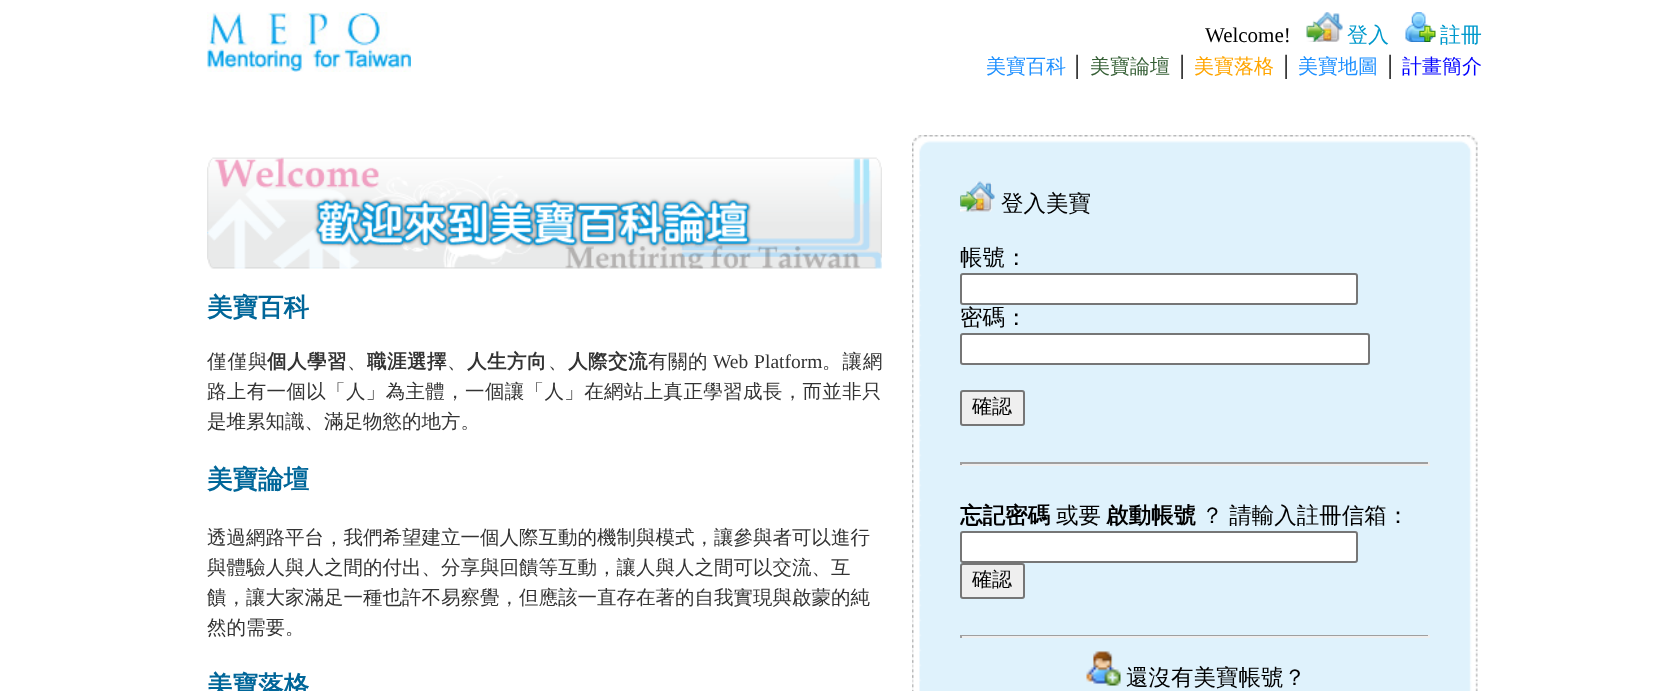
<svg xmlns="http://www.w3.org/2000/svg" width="1654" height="691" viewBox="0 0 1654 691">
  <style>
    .t1 { font: 21px Liberation Serif; fill: #000; }
    .t2 { font: 500 21px WenQuanYi Zen Hei; fill: #09c; }
    .t3 { font: 500 20px WenQuanYi Zen Hei; fill: #1e90ff; }
    .t4 { font: 20px Liberation Serif; fill: #000; }
    .t5 { font: 500 20px WenQuanYi Zen Hei; fill: #355f35; }
    .t6 { font: 500 20px WenQuanYi Zen Hei; fill: #ffa500; }
    .t7 { font: 500 20px WenQuanYi Zen Hei; fill: #00f; }
    .t8 { font: bold 25.5px WenQuanYi Zen Hei; fill: #069; }
    .t9 { font: 500 19.5px WenQuanYi Zen Hei; letter-spacing: 1px; fill: #333; }
    .t10 { font: bold 19.5px WenQuanYi Zen Hei; letter-spacing: 0.5px; fill: #333; }
    .t11 { font: 500 19.5px WenQuanYi Zen Hei; fill: #333; }
    .t12 { font: 500 19.5px WenQuanYi Zen Hei; letter-spacing: 0.5px; fill: #333; }
    .t13 { font: 19.5px Liberation Serif; fill: #333; }
    .t14 { font: 500 19.5px WenQuanYi Zen Hei; letter-spacing: 0.35px; fill: #333; }
    .t15 { font: 500 22.5px WenQuanYi Zen Hei; fill: #000; }
    .t16 { font: 500 20px WenQuanYi Zen Hei; fill: #000; }
    .t17 { font: bold 22.5px WenQuanYi Zen Hei; fill: #000; }
  </style>
  <rect width="100%" height="100%" fill="#fff"/>
  <image x="207" y="12" width="204" height="60" href="images/1.png"/>
  <text x="1205" y="42" class="t1">Welcome!</text>
  <image x="1306" y="12" width="37" height="30" href="images/2.png"/>
  <text x="1347" y="42" class="t2">登入</text>
  <image x="1405" y="12" width="31" height="30" href="images/3.png"/>
  <text x="1440" y="42" class="t2">註冊</text>
  <text x="986" y="73" class="t3">美寶百科</text>
  <text x="1070" y="73" class="t4">│</text>
  <text x="1090" y="73" class="t5">美寶論壇</text>
  <text x="1175" y="73" class="t4">│</text>
  <text x="1194" y="73" class="t6">美寶落格</text>
  <text x="1279" y="73" class="t4">│</text>
  <text x="1298" y="73" class="t3">美寶地圖</text>
  <text x="1383" y="73" class="t4">│</text>
  <text x="1402" y="73" class="t7">計畫簡介</text>
  <image x="207" y="157" width="675" height="112" href="images/4.png"/>
  <text x="207" y="316" class="t8">美寶百科</text>
  <text x="207" y="368" class="t9">僅僅與</text>
  <text x="267" y="368" class="t10">個人學習</text>
  <text x="347" y="368" class="t11">、</text>
  <text x="367" y="368" class="t10">職涯選擇</text>
  <text x="447" y="368" class="t11">、</text>
  <text x="467" y="368" class="t10">人生方向</text>
  <text x="548" y="368" class="t11">、</text>
  <text x="568" y="368" class="t10">人際交流</text>
  <text x="648" y="368" class="t12">有關的</text>
  <text x="713" y="368" word-spacing="1" class="t13">Web Platform</text>
  <text x="822" y="368" class="t9">。讓網</text>
  <text x="207" y="398" class="t14">路上有一個以「人」為主體，一個讓「人」在網站上真正學習成長，而並非只</text>
  <text x="207" y="428" class="t11">是堆累知識、滿足物慾的地方。</text>
  <text x="207" y="488" class="t8">美寶論壇</text>
  <text x="207" y="544" class="t11">透過網路平台，我們希望建立一個人際互動的機制與模式，讓參與者可以進行</text>
  <text x="207" y="574" class="t11">與體驗人與人之間的付出、分享與回饋等互動，讓人與人之間可以交流、互</text>
  <text x="207" y="604" class="t11">饋，讓大家滿足一種也許不易察覺，但應該一直存在著的自我實現與啟蒙的純</text>
  <text x="207" y="634" class="t11">然的需要。</text>
  <text x="207" y="694" class="t8">美寶落格</text>
  <image x="912" y="135" width="566" height="21" href="images/5.png"/>
  <image x="912" y="156" width="566" height="535" href="images/6.png"/>
  <image x="960" y="181" width="35" height="31" href="images/7.png"/>
  <text x="1001" y="211" class="t15">登入美寶</text>
  <text x="960" y="265" class="t15">帳號：</text>
  <rect x="961" y="274" width="396" height="30" rx="2" fill="#fff" stroke="#767676" stroke-width="2"/>
  <text x="960" y="325" class="t15">密碼：</text>
  <rect x="961" y="334" width="408" height="30" rx="2" fill="#fff" stroke="#767676" stroke-width="2"/>
  <rect x="961" y="391" width="63" height="34" rx="2" fill="#efefef" stroke="#767676" stroke-width="2"/>
  <text x="972" y="413" class="t16">確認</text>
  <rect x="960" y="462" width="470" height="2" fill="#9f9f9f"/>
  <rect x="1428" y="462" width="2" height="3" fill="#eee"/>
  <rect x="960" y="464" width="470" height="2" fill="#eee"/>
  <rect x="960" y="462" width="2" height="3" fill="#9f9f9f"/>
  <text x="960" y="523" class="t17">忘記密碼</text>
  <text x="1056" y="523" class="t15">或要</text>
  <text x="1106" y="523" class="t17">啟動帳號</text>
  <text x="1201" y="523" word-spacing="-1" class="t15">？ 請輸入註冊信箱：</text>
  <rect x="961" y="532" width="396" height="30" rx="2" fill="#fff" stroke="#767676" stroke-width="2"/>
  <rect x="961" y="564" width="63" height="34" rx="2" fill="#efefef" stroke="#767676" stroke-width="2"/>
  <text x="972" y="586" class="t16">確認</text>
  <rect x="960" y="635" width="470" height="1" fill="#9f9f9f"/>
  <rect x="1428" y="635" width="2" height="3" fill="#eee"/>
  <rect x="960" y="636" width="470" height="2" fill="#eee"/>
  <rect x="960" y="635" width="2" height="3" fill="#9f9f9f"/>
  <image x="1086" y="651" width="35" height="35" href="images/8.png"/>
  <text x="1126" y="685" class="t15">還沒有美寶帳號？</text>
</svg>
